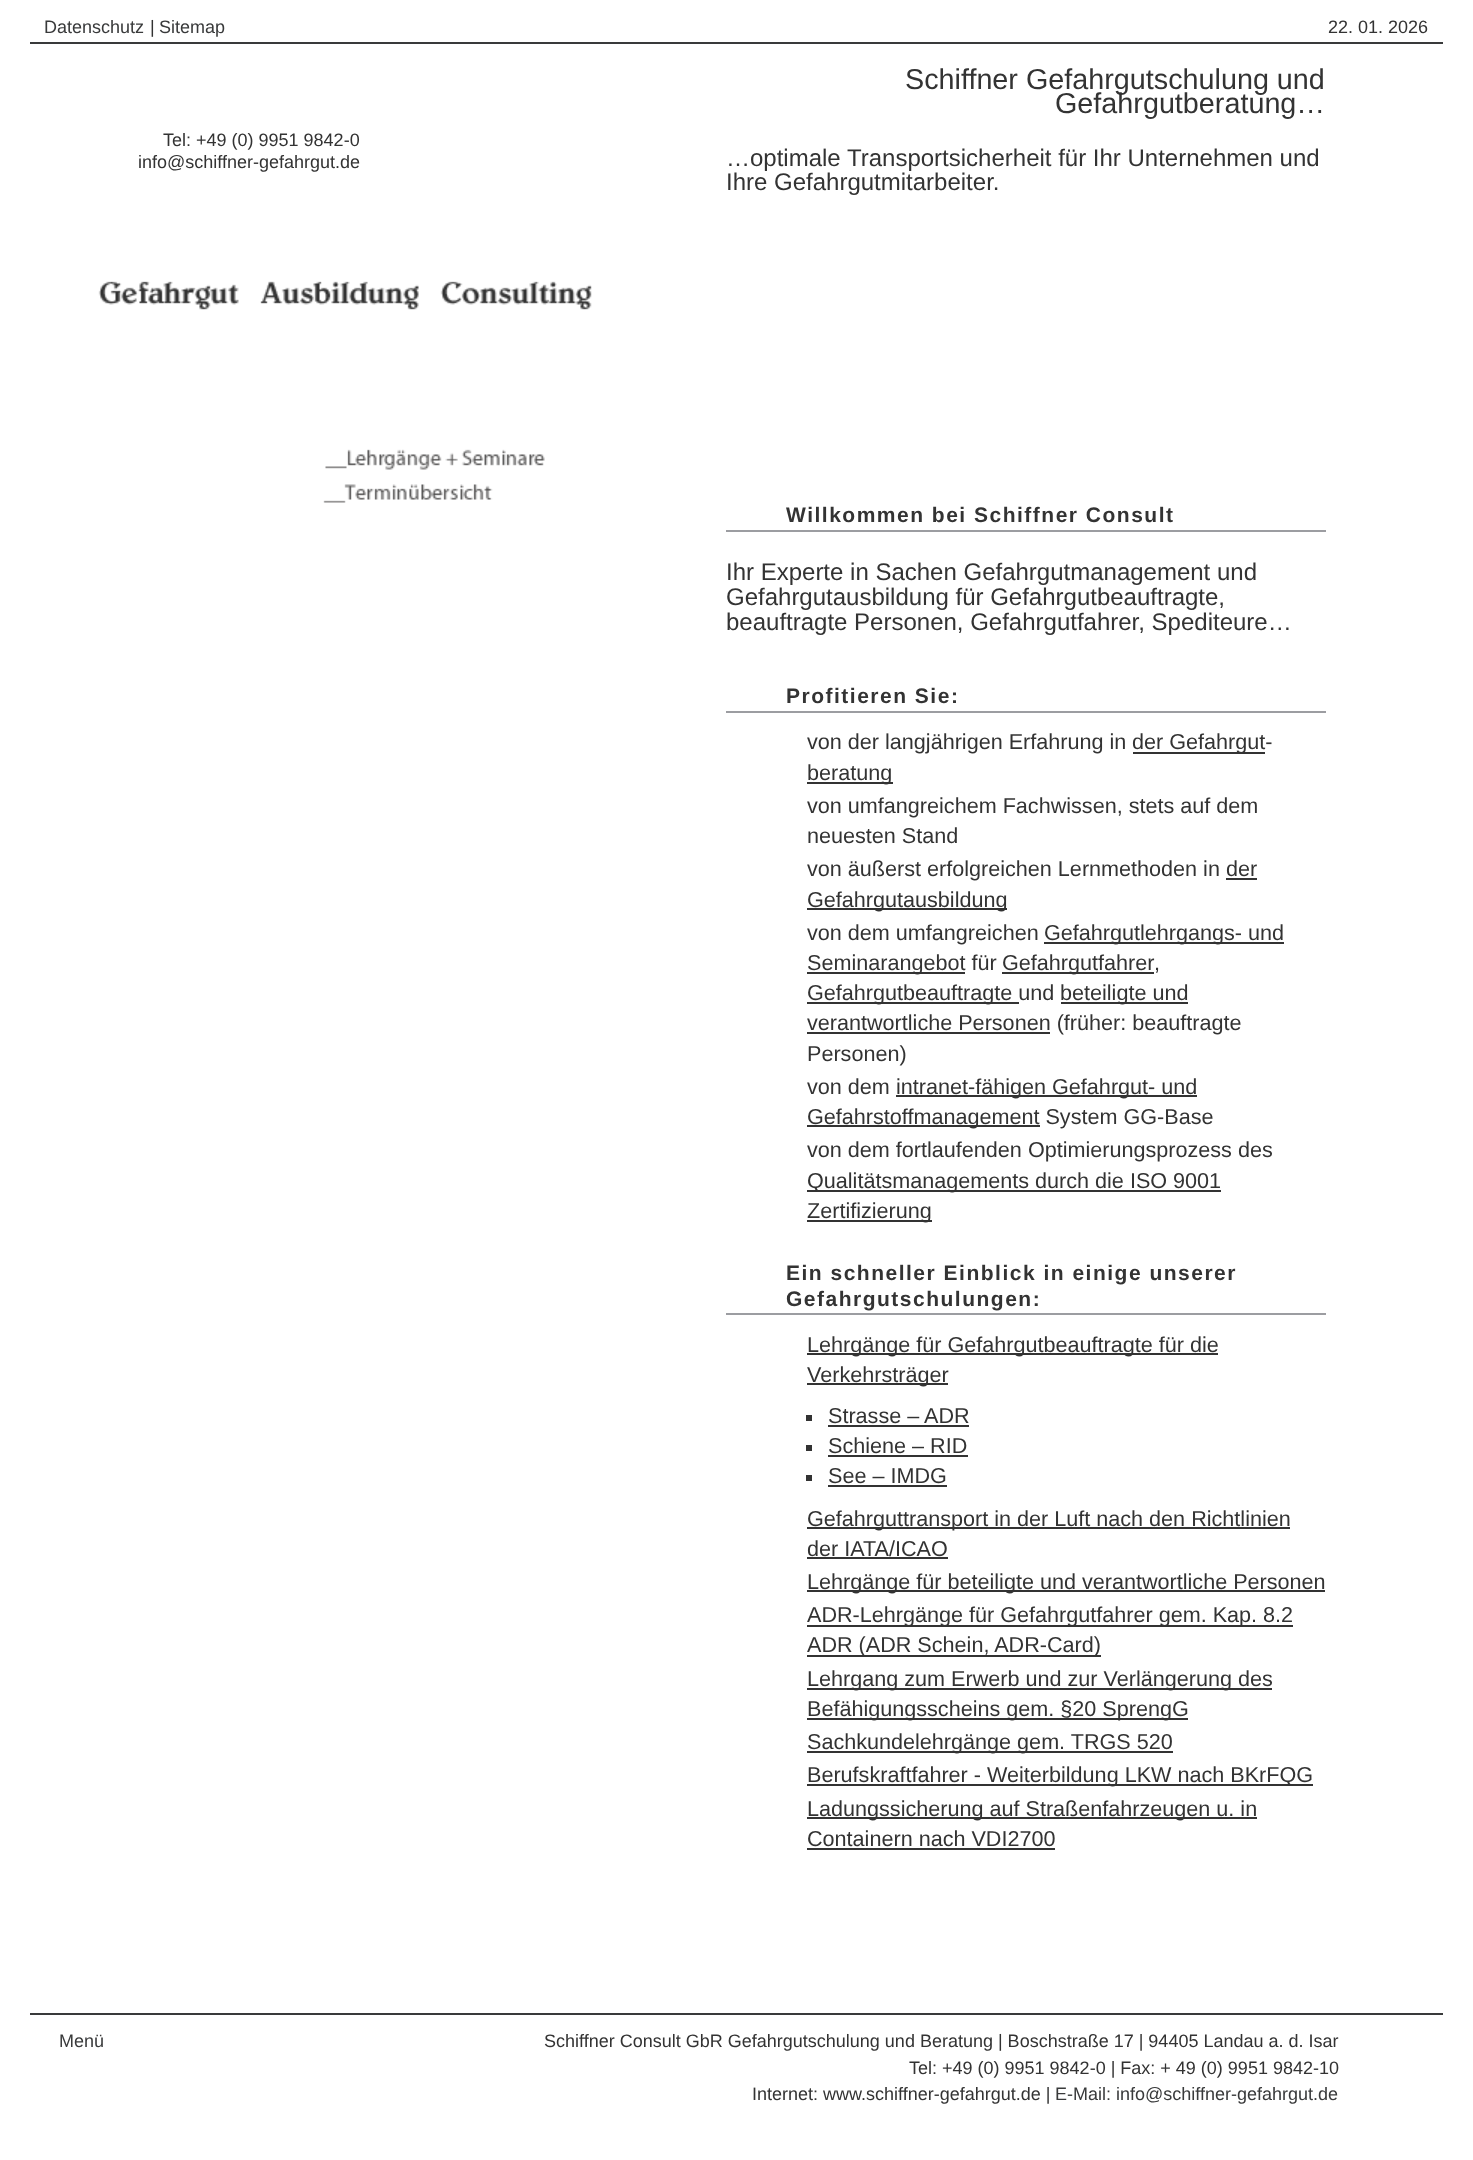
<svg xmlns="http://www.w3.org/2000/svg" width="1473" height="2160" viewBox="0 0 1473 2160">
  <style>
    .t1 { font: 18px Liberation Sans; fill: #393a3b; }
    .t2 { font: 18px Liberation Sans; fill: #333; }
    .t3 { font: 28.75px Liberation Sans; fill: #333; }
    .t4 { font: 24px Liberation Sans; fill: #333; }
    .t5 { font: bold 21px Liberation Sans; letter-spacing: 1.5px; fill: #333; }
    .t6 { font: 21.6px Liberation Sans; fill: #333; }
  </style>
  <rect width="100%" height="100%" fill="#fff"/>
  <rect x="30" y="42" width="1413" height="2" fill="#393a3b"/>
  <text x="44" y="33" class="t1">Datenschutz</text>
  <text x="150" y="33" class="t2">|</text>
  <text x="159" y="33" class="t1">Sitemap</text>
  <text x="1328" y="33" class="t2">22. 01. 2026</text>
  <text x="163" y="146" class="t2">Tel: +49 (0) 9951 9842-0</text>
  <text x="138" y="168" class="t2">info@schiffner-gefahrgut.de</text>
  <image x="98" y="281" width="494" height="29" href="images/1.png"/>
  <image x="325" y="449" width="220" height="21" href="images/2.png"/>
  <image x="323" y="484" width="170" height="19" href="images/3.png"/>
  <text x="905" y="89" class="t3">Schiffner Gefahrgutschulung und</text>
  <text x="1055" y="113" class="t3">Gefahrgutberatung…</text>
  <text x="726" y="166" class="t4">…optimale Transportsicherheit für Ihr Unternehmen und</text>
  <text x="726" y="190" class="t4">Ihre Gefahrgutmitarbeiter.</text>
  <rect x="726" y="530" width="600" height="2" fill="#9c9da1"/>
  <text x="786" y="522" class="t5">Willkommen bei Schiffner Consult</text>
  <text x="726" y="580" class="t4">Ihr Experte in Sachen Gefahrgutmanagement und</text>
  <text x="726" y="605" class="t4">Gefahrgutausbildung für Gefahrgutbeauftragte,</text>
  <text x="726" y="630" class="t4">beauftragte Personen, Gefahrgutfahrer, Spediteure…</text>
  <rect x="726" y="711" width="600" height="2" fill="#9c9da1"/>
  <text x="786" y="703" class="t5">Profitieren Sie:</text>
  <text x="807" y="749" class="t6">von der langjährigen Erfahrung in</text>
  <rect x="1133" y="752" width="132" height="2" fill="#333"/>
  <text x="1132" y="749" class="t6">der Gefahrgut-</text>
  <rect x="807" y="782" width="86" height="2" fill="#333"/>
  <text x="807" y="780" class="t6">beratung</text>
  <text x="807" y="813" class="t6">von umfangreichem Fachwissen, stets auf dem</text>
  <text x="807" y="843" class="t6">neuesten Stand</text>
  <text x="807" y="876" class="t6">von äußerst erfolgreichen Lernmethoden in der</text>
  <rect x="807" y="908" width="200" height="2" fill="#333"/>
  <text x="807" y="907" class="t6">Gefahrgutausbildung</text>
  <rect x="1226" y="878" width="31" height="2" fill="#333"/>
  <text x="807" y="940" class="t6">von dem umfangreichen</text>
  <rect x="1044" y="942" width="240" height="2" fill="#333"/>
  <text x="1044" y="940" class="t6">Gefahrgutlehrgangs- und</text>
  <rect x="807" y="972" width="158" height="2" fill="#333"/>
  <text x="807" y="970" class="t6">Seminarangebot für</text>
  <rect x="1002" y="972" width="152" height="2" fill="#333"/>
  <text x="1002" y="970" class="t6">Gefahrgutfahrer</text>
  <text x="1154" y="970" class="t6">,</text>
  <rect x="807" y="1002" width="212" height="2" fill="#333"/>
  <text x="807" y="1000" class="t6">Gefahrgutbeauftragte und</text>
  <rect x="1061" y="1002" width="127" height="2" fill="#333"/>
  <text x="1060" y="1000" class="t6">beteiligte und</text>
  <rect x="807" y="1032" width="243" height="2" fill="#333"/>
  <text x="807" y="1030" class="t6">verantwortliche Personen (früher: beauftragte</text>
  <text x="807" y="1061" class="t6">Personen)</text>
  <text x="807" y="1094" class="t6">von dem</text>
  <rect x="896" y="1095" width="301" height="2" fill="#333"/>
  <text x="896" y="1094" class="t6">intranet-fähigen Gefahrgut- und</text>
  <rect x="807" y="1125" width="233" height="2" fill="#333"/>
  <text x="807" y="1124" class="t6">Gefahrstoffmanagement System GG-Base</text>
  <text x="807" y="1157" class="t6">von dem fortlaufenden Optimierungsprozess des</text>
  <rect x="807" y="1190" width="414" height="2" fill="#333"/>
  <text x="807" y="1188" class="t6">Qualitätsmanagements durch die ISO 9001</text>
  <rect x="807" y="1220" width="125" height="2" fill="#333"/>
  <text x="807" y="1218" class="t6">Zertifizierung</text>
  <rect x="726" y="1313" width="600" height="2" fill="#9c9da1"/>
  <text x="786" y="1280" class="t5">Ein schneller Einblick in einige unserer</text>
  <text x="786" y="1306" class="t5">Gefahrgutschulungen:</text>
  <rect x="807" y="1353" width="411" height="2" fill="#333"/>
  <text x="807" y="1352" class="t6">Lehrgänge für Gefahrgutbeauftragte für die</text>
  <rect x="807" y="1383" width="141" height="2" fill="#333"/>
  <text x="807" y="1382" class="t6">Verkehrsträger</text>
  <rect x="806" y="1415" width="6" height="6" fill="#333"/>
  <text x="828" y="1423" class="t6">Strasse – ADR</text>
  <rect x="828" y="1425" width="141" height="2" fill="#333"/>
  <rect x="806" y="1445" width="6" height="6" fill="#333"/>
  <text x="828" y="1453" class="t6">Schiene – RID</text>
  <rect x="828" y="1455" width="140" height="2" fill="#333"/>
  <rect x="806" y="1475" width="6" height="6" fill="#333"/>
  <text x="828" y="1483" class="t6">See – IMDG</text>
  <rect x="828" y="1485" width="119" height="2" fill="#333"/>
  <rect x="807" y="1527" width="483" height="2" fill="#333"/>
  <text x="807" y="1526" class="t6">Gefahrguttransport in der Luft nach den Richtlinien</text>
  <text x="807" y="1556" class="t6">der IATA/ICAO</text>
  <rect x="807" y="1557" width="141" height="2" fill="#333"/>
  <rect x="807" y="1590" width="518" height="2" fill="#333"/>
  <text x="807" y="1589" class="t6">Lehrgänge für beteiligte und verantwortliche Personen</text>
  <rect x="807" y="1625" width="486" height="2" fill="#333"/>
  <text x="807" y="1622" class="t6">ADR-Lehrgänge für Gefahrgutfahrer gem. Kap. 8.2</text>
  <rect x="807" y="1655" width="294" height="2" fill="#333"/>
  <text x="807" y="1652" class="t6">ADR (ADR Schein, ADR-Card)</text>
  <rect x="807" y="1688" width="465" height="2" fill="#333"/>
  <text x="807" y="1686" class="t6">Lehrgang zum Erwerb und zur Verlängerung des</text>
  <rect x="807" y="1718" width="381" height="2" fill="#333"/>
  <text x="807" y="1716" class="t6">Befähigungsscheins gem. §20 SprengG</text>
  <rect x="807" y="1751" width="366" height="2" fill="#333"/>
  <text x="807" y="1749" class="t6">Sachkundelehrgänge gem. TRGS 520</text>
  <rect x="807" y="1784" width="506" height="2" fill="#333"/>
  <text x="807" y="1782" class="t6">Berufskraftfahrer - Weiterbildung LKW nach BKrFQG</text>
  <rect x="807" y="1817" width="450" height="2" fill="#333"/>
  <text x="807" y="1816" class="t6">Ladungssicherung auf Straßenfahrzeugen u. in</text>
  <text x="807" y="1846" class="t6">Containern nach VDI2700</text>
  <rect x="807" y="1848" width="248" height="2" fill="#333"/>
  <rect x="30" y="2013" width="1413" height="2" fill="#393a3b"/>
  <text x="59" y="2047" class="t1">Menü</text>
  <text x="544" y="2047" class="t2">Schiffner Consult GbR Gefahrgutschulung und Beratung | Boschstraße 17 | 94405 Landau a. d. Isar</text>
  <text x="909" y="2074" class="t2">Tel: +49 (0) 9951 9842-0 | Fax: + 49 (0) 9951 9842-10</text>
  <text x="752" y="2100" class="t2">Internet: www.schiffner-gefahrgut.de |</text>
  <text x="1055" y="2100" class="t1">E-Mail: info@schiffner-gefahrgut.de</text>
</svg>
